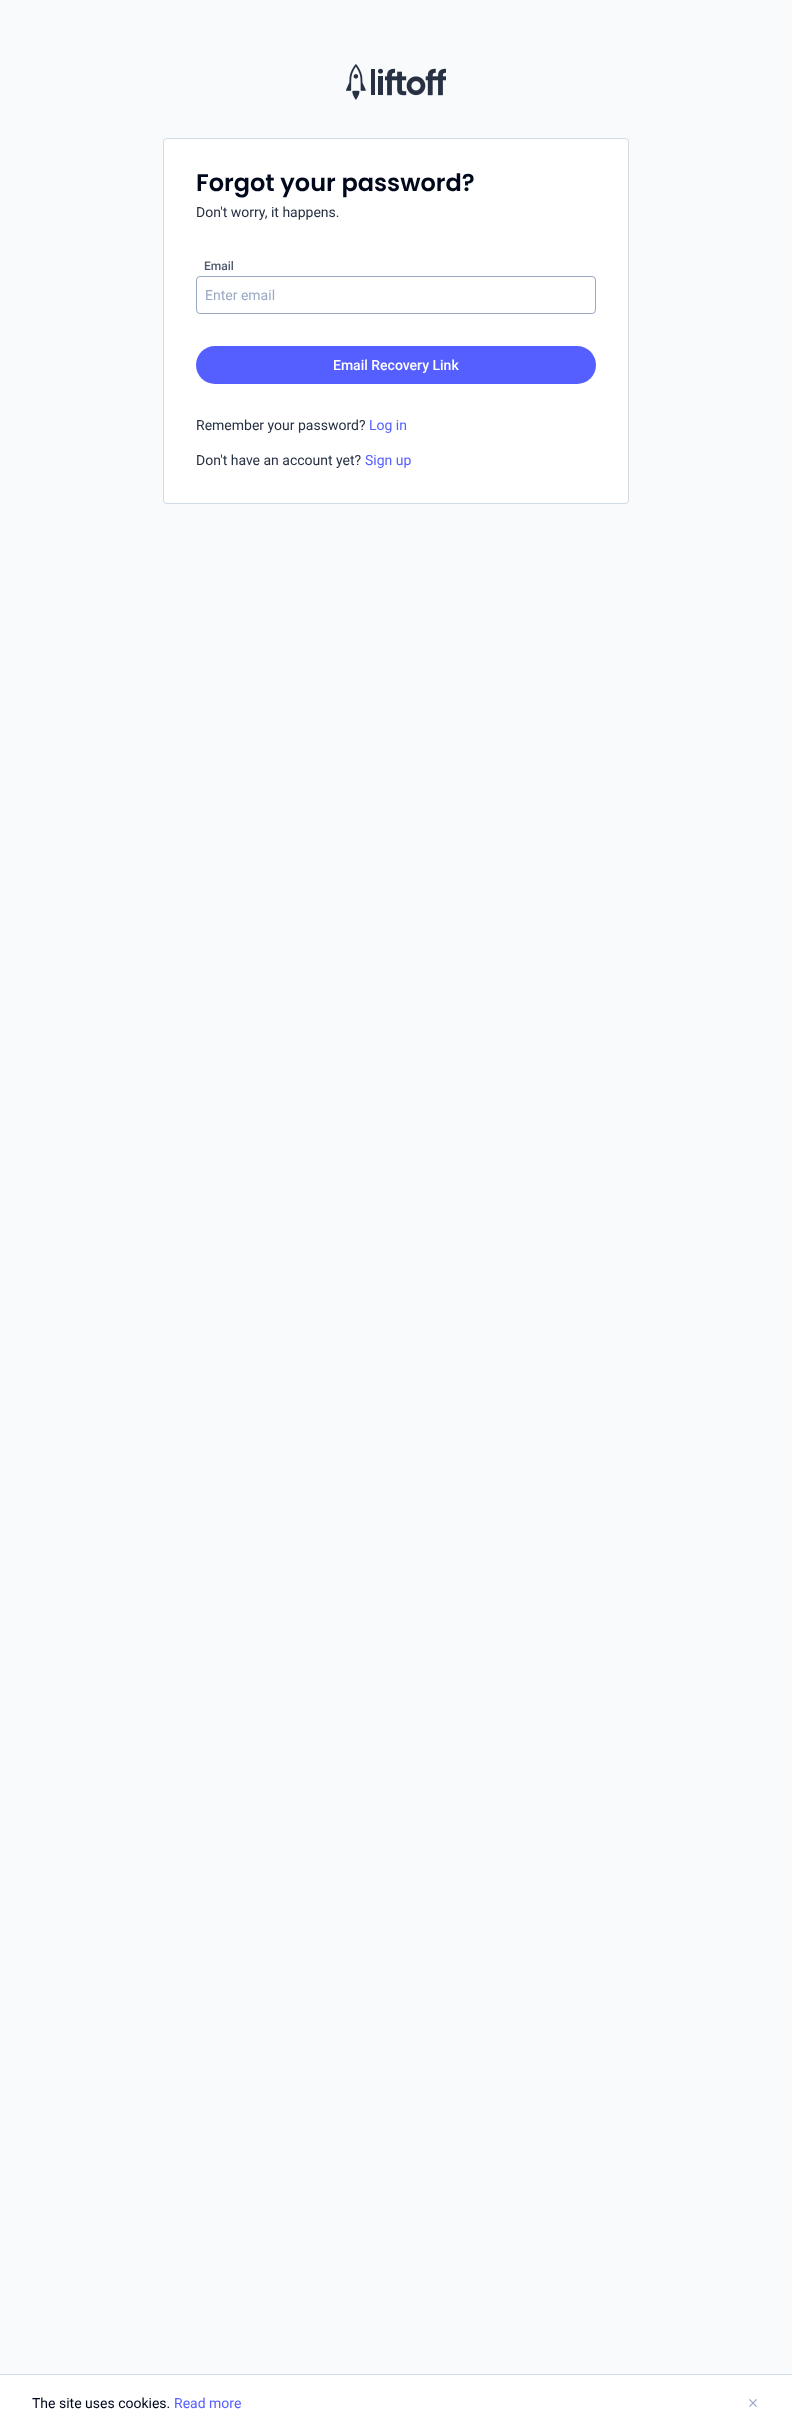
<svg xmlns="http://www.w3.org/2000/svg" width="792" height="2432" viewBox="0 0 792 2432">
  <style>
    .t1 { font: 600 24px Poppins; fill: #00081c; }
    .t2 { font: 14px Roboto; fill: #273143; }
    .t3 { font: 500 12px Roboto; fill: #505a6e; }
    .t4 { font: 14px Roboto; fill: #9aa9c3; }
    .t5 { font: 500 14px Roboto; fill: #fff; }
    .t6 { font: 14px Roboto; fill: #555fff; }
    .t7 { font: 14px Roboto; fill: #00081c; }
  </style>
  <rect width="100%" height="100%" fill="#f9fafc"/>
  <image x="346" y="64" width="100" height="36" href="images/1.png"/>
  <rect x="163.5" y="138.5" width="465" height="365" rx="3.5" fill="#fff" stroke="#d2dbe8"/>
  <text x="196" y="191" class="t1">Forgot your password?</text>
  <text x="196" y="217" class="t2">Don't worry, it happens.</text>
  <text x="204" y="270" class="t3">Email</text>
  <rect x="196.5" y="276.5" width="399" height="37" rx="3.5" fill="none" stroke="#9aa9c3"/>
  <text x="205" y="300" class="t4">Enter email</text>
  <rect x="196" y="346" width="400" height="38" rx="19" fill="#555fff"/>
  <text x="333" y="370" class="t5">Email Recovery Link</text>
  <text x="196" y="430" class="t2">Remember your password?</text>
  <text x="369" y="430" class="t6">Log in</text>
  <text x="196" y="465" class="t2">Don't have an account yet?</text>
  <text x="365" y="465" class="t6">Sign up</text>
  <rect x="0" y="2375" width="792" height="57" fill="#fff"/>
  <rect x="0" y="2374" width="792" height="1" fill="#d2dbe8"/>
  <text x="32" y="2408" class="t7">The site uses cookies.</text>
  <text x="174" y="2408" class="t6">Read more</text>
  <image x="749" y="2399" width="8" height="8" href="images/2.png"/>
</svg>
